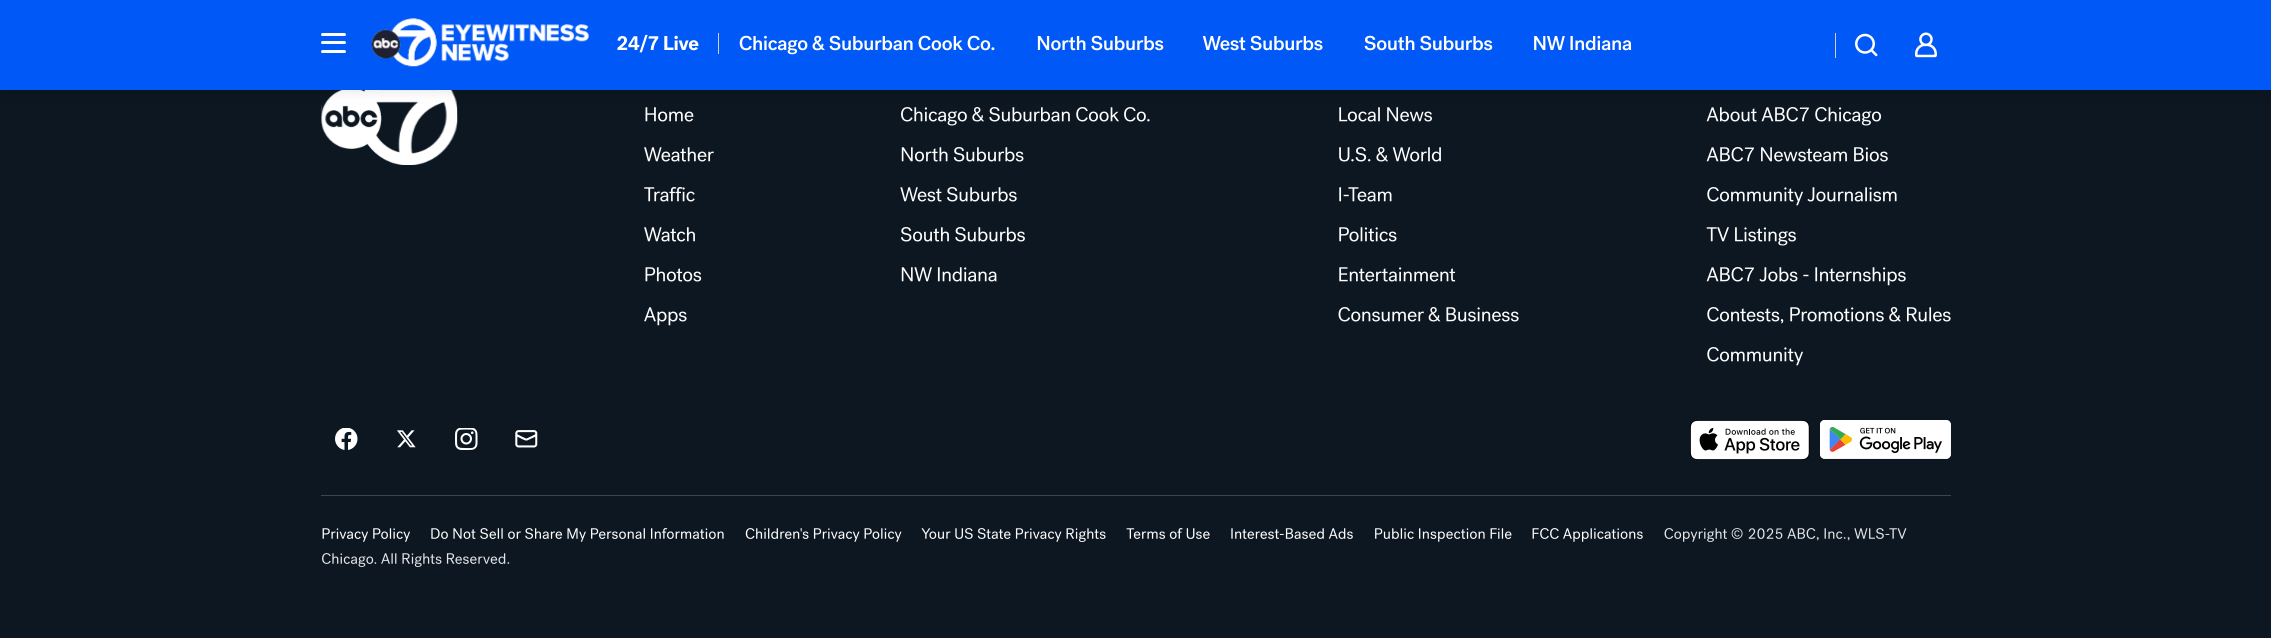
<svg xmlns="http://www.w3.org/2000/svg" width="2271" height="638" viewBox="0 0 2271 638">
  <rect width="100%" height="100%" fill="#0d1721"/>
  <image x="321" y="90" width="137" height="75" href="images/10.png"/>
  <image x="645" y="107" width="49" height="15" href="images/11.png"/>
  <image x="901" y="107" width="249" height="19" href="images/17.png"/>
  <image x="1339" y="107" width="93" height="15" href="images/22.png"/>
  <image x="1706" y="107" width="175" height="19" href="images/28.png"/>
  <rect x="0" y="3" width="2271" height="90" fill="#00000014" filter="blur(6px)"/>
  <rect x="0" y="0" width="2271" height="90" fill="#0058f6"/>
  <rect x="321" y="41" width="25" height="3" rx="1.5" fill="#fff"/>
  <rect x="321" y="33" width="25" height="3" rx="1.5" fill="#fff"/>
  <rect x="321" y="50" width="25" height="3" rx="1.5" fill="#fff"/>
  <image x="371" y="18" width="218" height="49" href="images/1.png"/>
  <image x="617" y="34" width="82" height="19" href="images/2.png"/>
  <rect x="718" y="33" width="1" height="21" fill="#cecfcf"/>
  <image x="739" y="35" width="256" height="20" href="images/3.png"/>
  <image x="1037" y="35" width="127" height="16" href="images/4.png"/>
  <image x="1202" y="35" width="121" height="16" href="images/5.png"/>
  <image x="1364" y="35" width="129" height="16" href="images/6.png"/>
  <image x="1534" y="35" width="98" height="16" href="images/7.png"/>
  <rect x="1835" y="33" width="1" height="25" fill="#cecfcf"/>
  <image x="1855" y="33" width="23" height="24" href="images/8.png"/>
  <image x="1915" y="32" width="22" height="26" href="images/9.png"/>
  <image x="644" y="147" width="70" height="15" href="images/12.png"/>
  <image x="644" y="187" width="51" height="15" href="images/13.png"/>
  <image x="644" y="227" width="51" height="15" href="images/14.png"/>
  <image x="645" y="267" width="57" height="15" href="images/15.png"/>
  <image x="644" y="307" width="43" height="19" href="images/16.png"/>
  <image x="901" y="147" width="123" height="15" href="images/18.png"/>
  <image x="900" y="187" width="117" height="15" href="images/19.png"/>
  <image x="901" y="227" width="124" height="15" href="images/20.png"/>
  <image x="901" y="267" width="96" height="15" href="images/21.png"/>
  <image x="1339" y="147" width="102" height="15" href="images/23.png"/>
  <image x="1339" y="187" width="53" height="15" href="images/24.png"/>
  <image x="1339" y="227" width="58" height="15" href="images/25.png"/>
  <image x="1339" y="267" width="117" height="15" href="images/26.png"/>
  <image x="1338" y="307" width="181" height="15" href="images/27.png"/>
  <image x="1706" y="147" width="182" height="15" href="images/29.png"/>
  <image x="1707" y="187" width="190" height="19" href="images/30.png"/>
  <image x="1706" y="227" width="90" height="19" href="images/31.png"/>
  <image x="1706" y="267" width="200" height="19" href="images/32.png"/>
  <image x="1707" y="307" width="244" height="17" href="images/33.png"/>
  <image x="1707" y="347" width="96" height="19" href="images/34.png"/>
  <image x="335" y="428" width="23" height="22" href="images/35.png"/>
  <image x="397" y="430" width="19" height="18" href="images/36.png"/>
  <image x="455" y="428" width="23" height="22" href="images/37.png"/>
  <image x="515" y="430" width="23" height="18" href="images/38.png"/>
  <image x="1690" y="420" width="120" height="40" href="images/39.png"/>
  <image x="1820" y="420" width="131" height="39" href="images/40.png"/>
  <rect x="321" y="495" width="1630" height="1" fill="#3d454d"/>
  <image x="322" y="528" width="88" height="14" href="images/41.png"/>
  <image x="431" y="528" width="293" height="14" href="images/42.png"/>
  <image x="745" y="528" width="157" height="14" href="images/43.png"/>
  <image x="921" y="528" width="185" height="14" href="images/44.png"/>
  <image x="1126" y="528" width="84" height="11" href="images/45.png"/>
  <image x="1231" y="528" width="122" height="11" href="images/46.png"/>
  <image x="1375" y="528" width="137" height="14" href="images/47.png"/>
  <image x="1532" y="528" width="111" height="14" href="images/48.png"/>
  <image x="1664" y="528" width="79" height="14" href="images/49.png"/>
  <image x="1748" y="528" width="159" height="13" href="images/50.png"/>
  <image x="322" y="553" width="188" height="14" href="images/51.png"/>
</svg>
